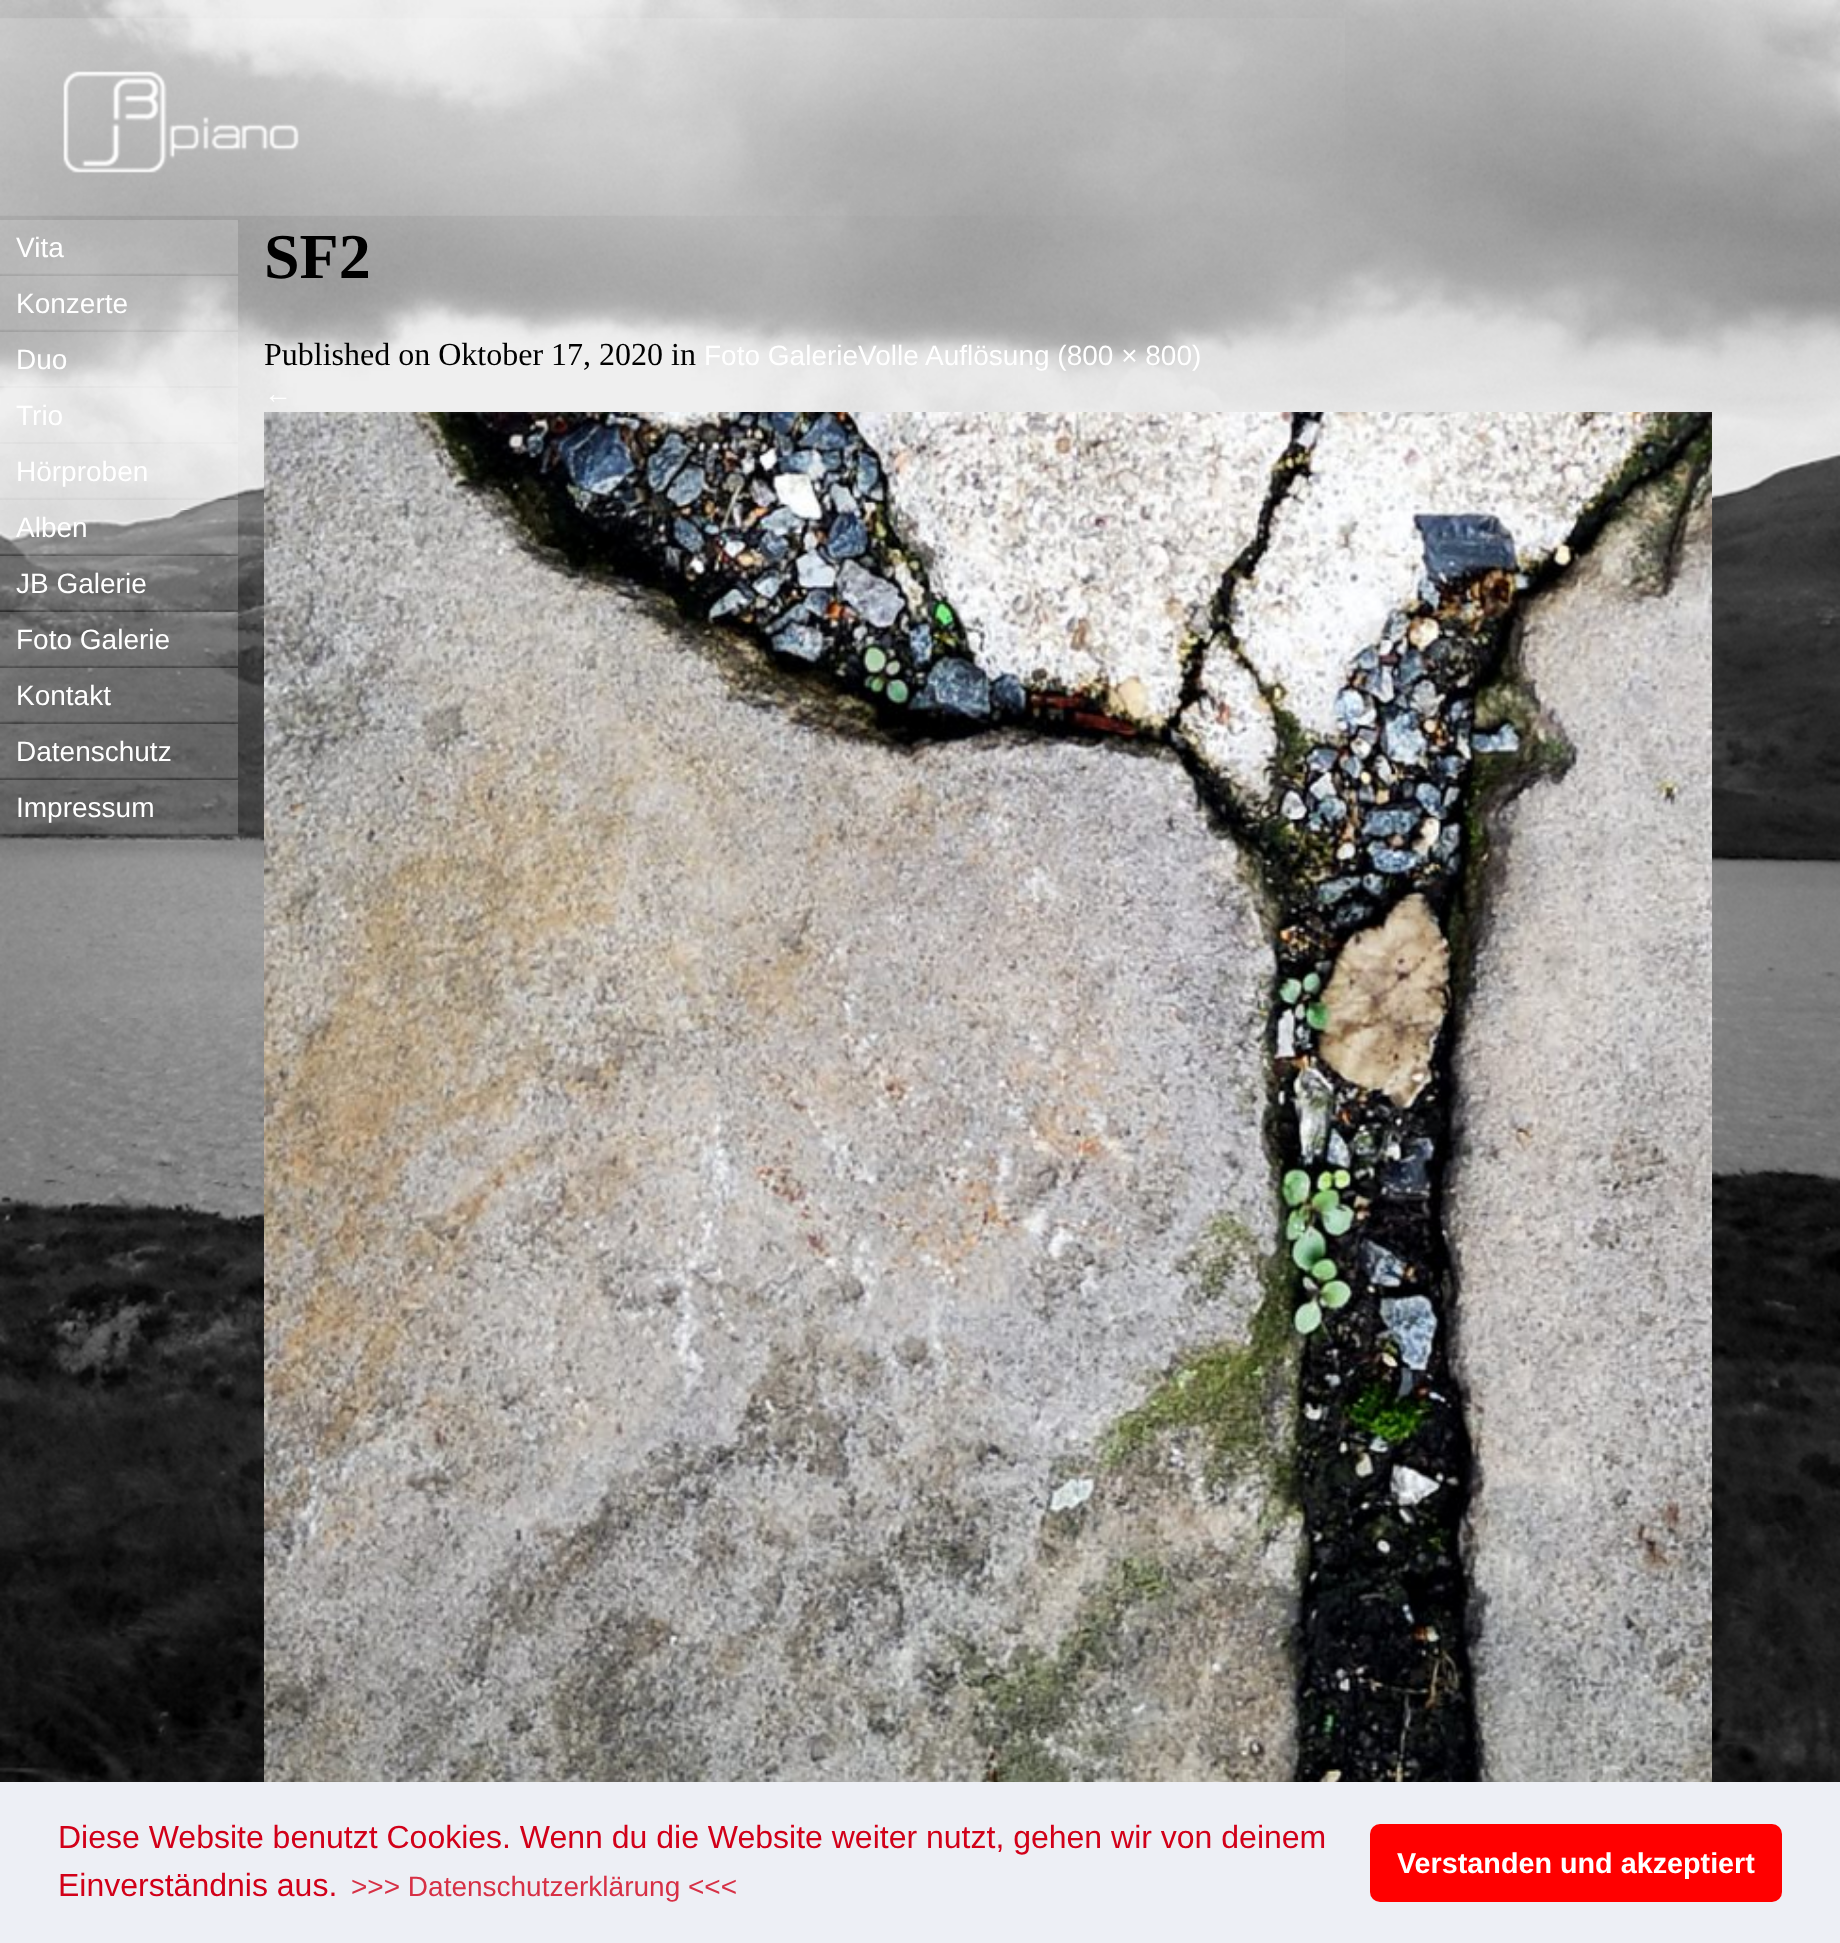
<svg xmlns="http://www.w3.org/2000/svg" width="1840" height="1943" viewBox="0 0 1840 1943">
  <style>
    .t1 { font: 28px Liberation Sans; fill: #fff; }
    .t2 { font: bold 64px Liberation Serif; fill: #000; }
    .t3 { font: 32px Liberation Serif; fill: #000; }
    .t4 { font: 32px Liberation Sans; fill: #d20019; }
    .t5 { font: 28px Liberation Sans; fill: #d73045; }
    .t6 { font: bold 28.75px Liberation Sans; fill: #fff; }
  </style>
  <rect width="100%" height="100%" fill="#fff"/>
  <image x="0" y="0" width="1840" height="1782" href="images/1.png"/>
  <image x="0" y="18" width="1345" height="198" href="images/2.png"/>
  <image x="0" y="220" width="238" height="55" href="images/3.png"/>
  <text x="16" y="257" class="t1">Vita</text>
  <image x="0" y="276" width="238" height="55" href="images/4.png"/>
  <text x="16" y="313" class="t1">Konzerte</text>
  <rect x="0" y="332" width="238" height="54" fill="#ffffff33"/>
  <text x="16" y="369" class="t1">Duo</text>
  <rect x="0" y="388" width="238" height="54" fill="#ffffff33"/>
  <text x="16" y="425" class="t1">Trio</text>
  <image x="0" y="444" width="238" height="55" href="images/5.png"/>
  <text x="16" y="481" class="t1">Hörproben</text>
  <image x="0" y="500" width="238" height="55" href="images/6.png"/>
  <text x="16" y="537" class="t1">Alben</text>
  <image x="0" y="556" width="238" height="55" href="images/7.png"/>
  <text x="16" y="593" class="t1">JB Galerie</text>
  <image x="0" y="612" width="238" height="55" href="images/8.png"/>
  <text x="16" y="649" class="t1">Foto Galerie</text>
  <image x="0" y="668" width="238" height="55" href="images/9.png"/>
  <text x="16" y="705" class="t1">Kontakt</text>
  <image x="0" y="724" width="238" height="55" href="images/10.png"/>
  <text x="16" y="761" class="t1">Datenschutz</text>
  <image x="0" y="780" width="238" height="55" href="images/11.png"/>
  <text x="16" y="817" class="t1">Impressum</text>
  <text x="264" y="278" class="t2">SF2</text>
  <text x="264" y="365" class="t3">Published on Oktober 17, 2020 in</text>
  <text x="704" y="365" class="t1">Foto GalerieVolle Auflösung (800 × 800)</text>
  <text x="264" y="403" class="t1">←</text>
  <image x="264" y="412" width="1448" height="1370" href="images/12.png"/>
  <rect x="0" y="1782" width="1840" height="161" fill="#edeff5"/>
  <text x="58" y="1848" class="t4">Diese Website benutzt Cookies. Wenn du die Website weiter nutzt, gehen wir von deinem</text>
  <text x="58" y="1896" class="t4">Einverständnis aus.</text>
  <text x="351" y="1896" class="t5">&gt;&gt;&gt; Datenschutzerklärung &lt;&lt;&lt;</text>
  <rect x="1370" y="1824" width="412" height="78" rx="10" fill="#f00"/>
  <text x="1397" y="1873" class="t6">Verstanden und akzeptiert</text>
</svg>
